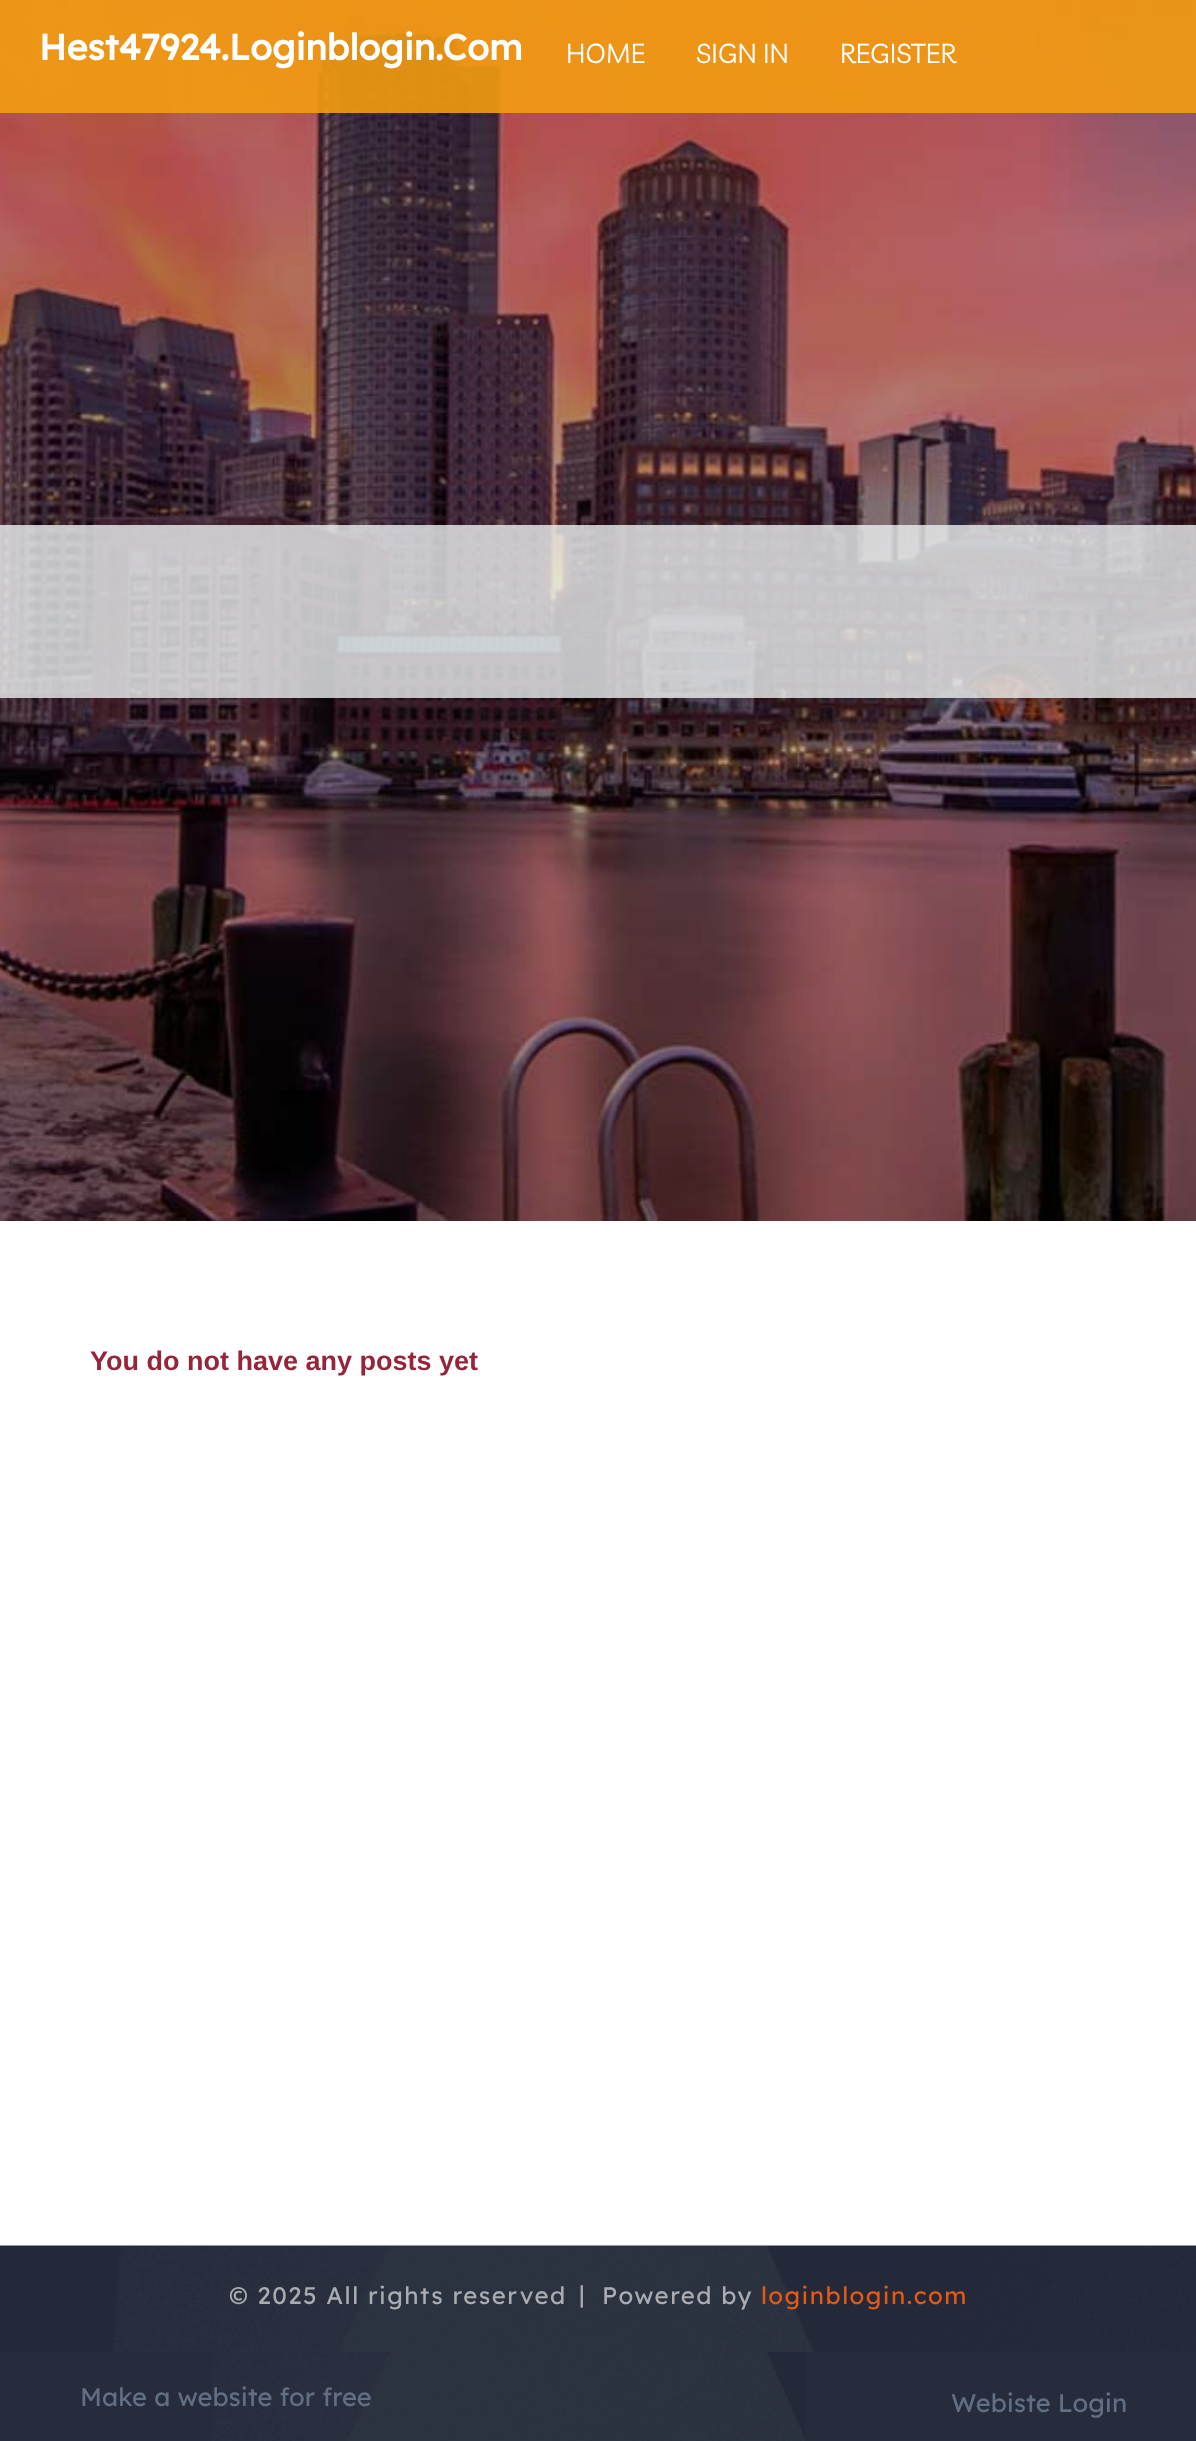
<svg xmlns="http://www.w3.org/2000/svg" width="1196" height="2441" viewBox="0 0 1196 2441">
  <style>
    .t1 { font: bold 36px Lexend Deca; fill: #fff; }
    .t2 { font: 27px Livvic; fill: #fff; }
    .t3 { font: bold 27px Liberation Sans; fill: #96243a; }
    .t4 { font: 24px Lexend Deca; letter-spacing: 1.5px; fill: #aaacb2; }
    .t5 { font: 24px Lexend Deca; letter-spacing: 1.5px; fill: #e45914; }
    .t6 { font: 25.5px Lexend Deca; fill: #616f84; }
  </style>
  <rect width="100%" height="100%" fill="#fff"/>
  <image x="0" y="0" width="1196" height="1221" href="images/1.png"/>
  <rect x="0" y="0" width="1196" height="113" fill="#f39c12e6"/>
  <text x="39" y="60" class="t1">Hest47924.Loginblogin.Com</text>
  <text x="566" y="63" class="t2">HOME</text>
  <text x="696" y="63" class="t2">SIGN IN</text>
  <text x="840" y="63" class="t2">REGISTER</text>
  <rect x="0" y="525" width="1196" height="173" fill="#ecf0f1cc"/>
  <text x="90" y="1370" class="t3">You do not have any posts yet</text>
  <image x="0" y="2245" width="1196" height="107" href="images/2.png"/>
  <text x="229" y="2304" class="t4">© 2025 All rights reserved</text>
  <text x="579" y="2303" class="t4">|</text>
  <text x="602" y="2304" class="t4">Powered by</text>
  <text x="761" y="2304" class="t5">loginblogin.com</text>
  <rect x="0" y="2352" width="1196" height="89" fill="#272c3c"/>
  <image x="212" y="2352" width="593" height="89" href="images/3.png"/>
  <text x="80" y="2406" class="t6">Make a website for free</text>
  <text x="951" y="2412" class="t6">Webiste Login</text>
</svg>
